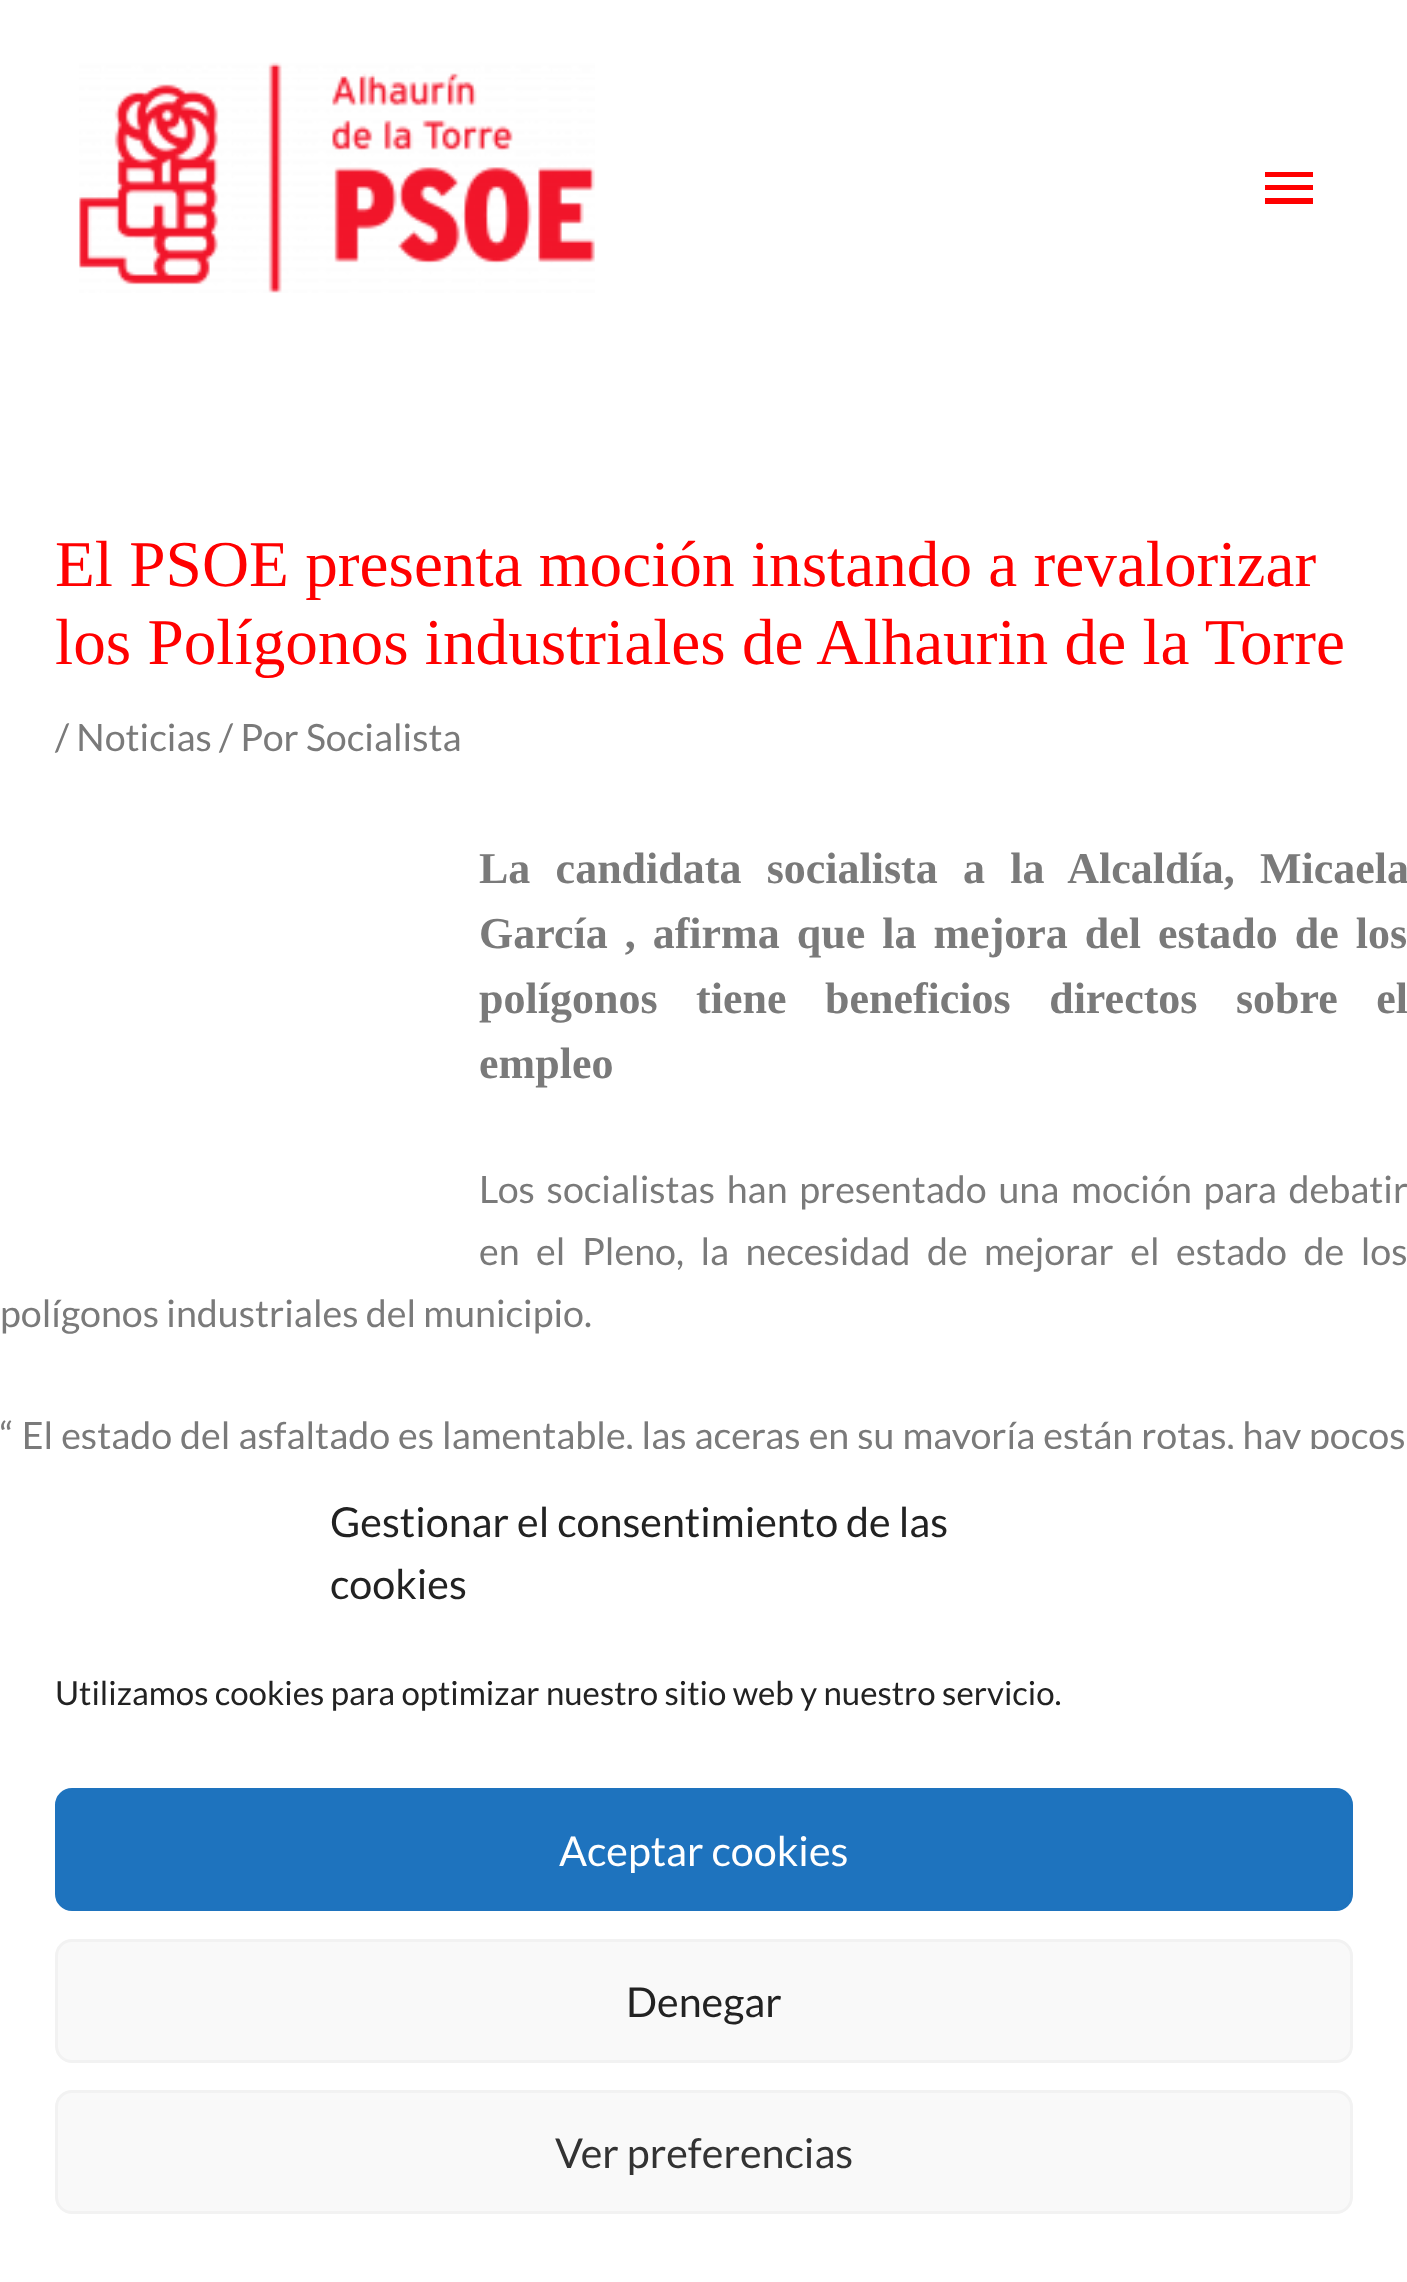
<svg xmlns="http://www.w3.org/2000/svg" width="1407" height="2282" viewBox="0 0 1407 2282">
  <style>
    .t1 { font: 65.25px Liberation Serif; fill: #f00; }
    .t2 { font: 37.6px Lato; fill: #7a7a7a; }
    .t3 { font: bold 44px Liberation Serif; fill: #7a7a7a; }
    .t4 { font: 41.25px Lato; fill: #222; }
    .t5 { font: 33px Lato; fill: #222; }
    .t6 { font: 41.25px Lato; fill: #fff; }
    .t7 { font: 41.25px Lato; fill: #333; }
  </style>
  <rect width="100%" height="100%" fill="#fff"/>
  <image x="79" y="62" width="516" height="231" href="images/1.png"/>
  <path d="M1265 172H1313V177H1265ZM1265 190V185H1313V190ZM1265 204V198H1313V204Z" fill="#f00"/>
  <text x="55" y="586" class="t1">El PSOE presenta moción instando a revalorizar</text>
  <text x="55" y="664" class="t1">los Polígonos industriales de Alhaurin de la Torre</text>
  <text x="55" y="751" class="t2">/ Noticias / Por Socialista</text>
  <text x="479" y="883" word-spacing="14.25" class="t3">La candidata socialista a la Alcaldía, Micaela</text>
  <text x="479" y="948" word-spacing="6" class="t3">García , afirma que la mejora del estado de los</text>
  <text x="479" y="1013" word-spacing="27.5" class="t3">polígonos tiene beneficios directos sobre el</text>
  <text x="479" y="1078" class="t3">empleo</text>
  <text x="479" y="1203" word-spacing="4.5" class="t2">Los socialistas han presentado una moción para debatir</text>
  <text x="479" y="1265" word-spacing="9.25" class="t2">en el Pleno, la necesidad de mejorar el estado de los</text>
  <text x="0" y="1327" class="t2">polígonos industriales del municipio.</text>
  <text x="0" y="1449" word-spacing="0.75" class="t2">“ El estado del asfaltado es lamentable, las aceras en su mayoría están rotas, hay pocos</text>
  <rect x="0" y="1449" width="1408" height="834" rx="33" fill="#fff"/>
  <text x="330" y="1537" class="t4">Gestionar el consentimiento de las</text>
  <text x="330" y="1599" class="t4">cookies</text>
  <text x="55" y="1705" class="t5">Utilizamos cookies para optimizar nuestro sitio web y nuestro servicio.</text>
  <rect x="56.5" y="1789.5" width="1295" height="120" rx="15.5" fill="#1e73be" stroke="#1e73be" stroke-width="3"/>
  <text x="559" y="1866" class="t6">Aceptar cookies</text>
  <rect x="56.5" y="1940.5" width="1295" height="121" rx="15.5" fill="#f9f9f9" stroke="#f2f2f2" stroke-width="3"/>
  <text x="626" y="2017" class="t4">Denegar</text>
  <rect x="56.5" y="2091.5" width="1295" height="121" rx="15.5" fill="#f9f9f9" stroke="#f2f2f2" stroke-width="3"/>
  <text x="555" y="2168" class="t7">Ver preferencias</text>
</svg>
